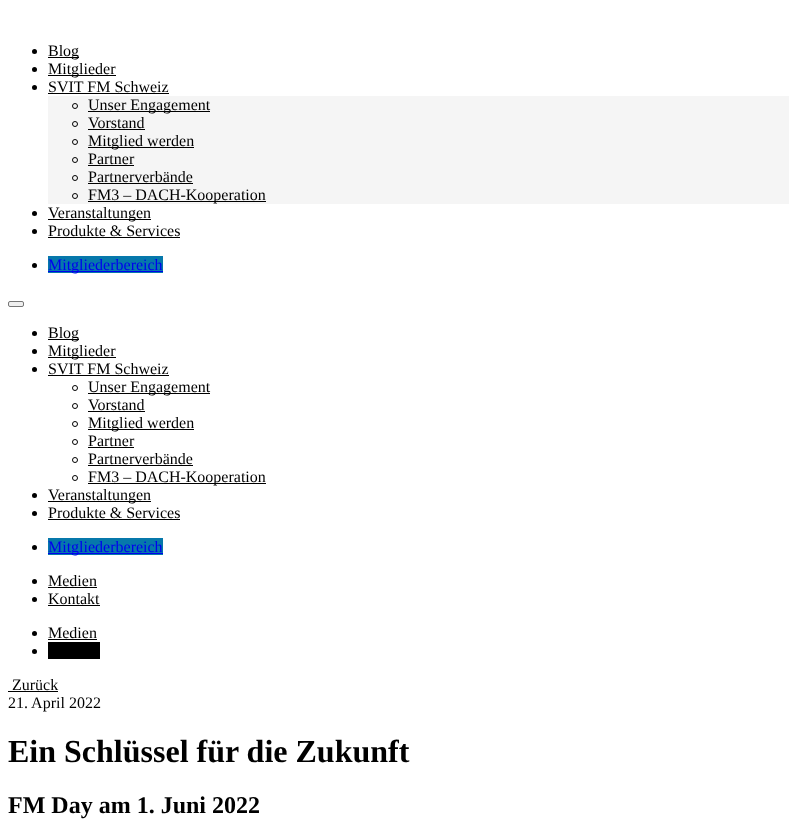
<svg xmlns="http://www.w3.org/2000/svg" width="797" height="836" viewBox="0 0 797 836">
  <style>
    .t1 { font: 16px Liberation Serif; fill: #000; }
    .t2 { font: 16px Liberation Serif; fill: #00e; }
    .t3 { font: bold 32px Liberation Serif; fill: #000; }
    .t4 { font: bold 24px Liberation Serif; fill: #000; }
  </style>
  <rect width="100%" height="100%" fill="#fff"/>
  <circle cx="34.5" cy="51.5" r="2.5" fill="#000"/>
  <rect x="48" y="57" width="31" height="1" fill="#000"/>
  <text x="48" y="56" class="t1">Blog</text>
  <circle cx="34.5" cy="69.5" r="2.5" fill="#000"/>
  <rect x="48" y="75" width="68" height="1" fill="#000"/>
  <text x="48" y="74" class="t1">Mitglieder</text>
  <circle cx="34.5" cy="87.5" r="2.5" fill="#000"/>
  <text x="48" y="92" class="t1">SVIT FM Schweiz</text>
  <rect x="48" y="93" width="121" height="1" fill="#000"/>
  <rect x="48" y="96" width="741" height="108" fill="#f5f5f5"/>
  <circle cx="75" cy="106" r="2.5" fill="none" stroke="#000"/>
  <rect x="88" y="111" width="122" height="1" fill="#000"/>
  <text x="88" y="110" class="t1">Unser Engagement</text>
  <circle cx="75" cy="124" r="2.5" fill="none" stroke="#000"/>
  <text x="88" y="128" class="t1">Vorstand</text>
  <rect x="88" y="129" width="57" height="1" fill="#000"/>
  <circle cx="75" cy="142" r="2.5" fill="none" stroke="#000"/>
  <rect x="88" y="147" width="106" height="1" fill="#000"/>
  <text x="88" y="146" class="t1">Mitglied werden</text>
  <circle cx="75" cy="160" r="2.5" fill="none" stroke="#000"/>
  <text x="88" y="164" class="t1">Partner</text>
  <rect x="88" y="165" width="46" height="1" fill="#000"/>
  <circle cx="75" cy="178" r="2.5" fill="none" stroke="#000"/>
  <text x="88" y="182" class="t1">Partnerverbände</text>
  <rect x="88" y="183" width="105" height="1" fill="#000"/>
  <circle cx="75" cy="196" r="2.5" fill="none" stroke="#000"/>
  <rect x="88" y="201" width="178" height="1" fill="#000"/>
  <text x="88" y="200" class="t1">FM3 – DACH-Kooperation</text>
  <circle cx="34.5" cy="213.5" r="2.5" fill="#000"/>
  <rect x="48" y="219" width="103" height="1" fill="#000"/>
  <text x="48" y="218" class="t1">Veranstaltungen</text>
  <circle cx="34.5" cy="231.5" r="2.5" fill="#000"/>
  <text x="48" y="236" class="t1">Produkte &amp; Services</text>
  <rect x="48" y="237" width="132" height="1" fill="#000"/>
  <circle cx="34.5" cy="265.5" r="2.5" fill="#000"/>
  <rect x="48" y="256" width="115" height="17" fill="#0678ab"/>
  <rect x="48" y="271" width="115" height="1" fill="#00e"/>
  <text x="48" y="270" class="t2">Mitgliederbereich</text>
  <rect x="8.5" y="301.5" width="15" height="5" rx="1.5" fill="#efefef" stroke="#767676"/>
  <circle cx="34.5" cy="333.5" r="2.5" fill="#000"/>
  <rect x="48" y="339" width="31" height="1" fill="#000"/>
  <text x="48" y="338" class="t1">Blog</text>
  <circle cx="34.5" cy="351.5" r="2.5" fill="#000"/>
  <rect x="48" y="357" width="68" height="1" fill="#000"/>
  <text x="48" y="356" class="t1">Mitglieder</text>
  <circle cx="34.5" cy="369.5" r="2.5" fill="#000"/>
  <text x="48" y="374" class="t1">SVIT FM Schweiz</text>
  <rect x="48" y="375" width="121" height="1" fill="#000"/>
  <circle cx="75" cy="388" r="2.5" fill="none" stroke="#000"/>
  <rect x="88" y="393" width="122" height="1" fill="#000"/>
  <text x="88" y="392" class="t1">Unser Engagement</text>
  <circle cx="75" cy="406" r="2.5" fill="none" stroke="#000"/>
  <text x="88" y="410" class="t1">Vorstand</text>
  <rect x="88" y="411" width="57" height="1" fill="#000"/>
  <circle cx="75" cy="424" r="2.5" fill="none" stroke="#000"/>
  <rect x="88" y="429" width="106" height="1" fill="#000"/>
  <text x="88" y="428" class="t1">Mitglied werden</text>
  <circle cx="75" cy="442" r="2.5" fill="none" stroke="#000"/>
  <text x="88" y="446" class="t1">Partner</text>
  <rect x="88" y="447" width="46" height="1" fill="#000"/>
  <circle cx="75" cy="460" r="2.5" fill="none" stroke="#000"/>
  <text x="88" y="464" class="t1">Partnerverbände</text>
  <rect x="88" y="465" width="105" height="1" fill="#000"/>
  <circle cx="75" cy="478" r="2.5" fill="none" stroke="#000"/>
  <rect x="88" y="483" width="178" height="1" fill="#000"/>
  <text x="88" y="482" class="t1">FM3 – DACH-Kooperation</text>
  <circle cx="34.5" cy="495.5" r="2.5" fill="#000"/>
  <rect x="48" y="501" width="103" height="1" fill="#000"/>
  <text x="48" y="500" class="t1">Veranstaltungen</text>
  <circle cx="34.5" cy="513.5" r="2.5" fill="#000"/>
  <text x="48" y="518" class="t1">Produkte &amp; Services</text>
  <rect x="48" y="519" width="132" height="1" fill="#000"/>
  <circle cx="34.5" cy="547.5" r="2.5" fill="#000"/>
  <rect x="48" y="538" width="115" height="17" fill="#0678ab"/>
  <rect x="48" y="553" width="115" height="1" fill="#00e"/>
  <text x="48" y="552" class="t2">Mitgliederbereich</text>
  <circle cx="34.5" cy="581.5" r="2.5" fill="#000"/>
  <text x="48" y="586" class="t1">Medien</text>
  <rect x="48" y="587" width="49" height="1" fill="#000"/>
  <circle cx="34.5" cy="599.5" r="2.5" fill="#000"/>
  <text x="48" y="604" class="t1">Kontakt</text>
  <rect x="48" y="605" width="52" height="1" fill="#000"/>
  <circle cx="34.5" cy="633.5" r="2.5" fill="#000"/>
  <text x="48" y="638" class="t1">Medien</text>
  <rect x="48" y="639" width="49" height="1" fill="#000"/>
  <circle cx="34.5" cy="651.5" r="2.5" fill="#000"/>
  <rect x="48" y="642" width="52" height="17" fill="#000"/>
  <text x="12" y="690" class="t1">Zurück</text>
  <rect x="8" y="691" width="50" height="1" fill="#000"/>
  <text x="8" y="708" class="t1">21. April 2022</text>
  <text x="8" y="762" class="t3">Ein Schlüssel für die Zukunft</text>
  <text x="8" y="813" class="t4">FM Day am 1. Juni 2022</text>
</svg>
